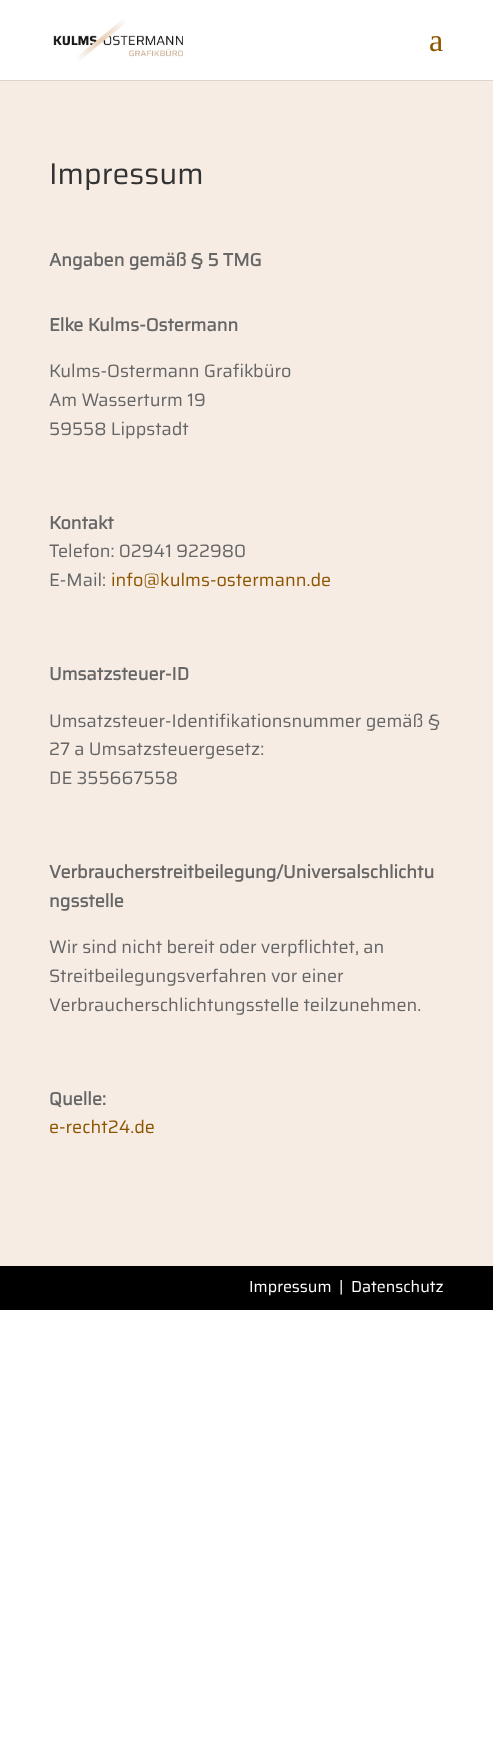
<svg xmlns="http://www.w3.org/2000/svg" width="493" height="1744" viewBox="0 0 493 1744">
  <style>
    .t1 { font: 32px Liberation Serif; fill: #8e5500; }
    .t2 { font: 30px Saira; fill: #333; }
    .t3 { font: bold 18px Saira; fill: #666; }
    .t4 { font: 18px Saira; fill: #666; }
    .t5 { font: 18px Saira; fill: #8e5500; }
    .t6 { font: 16px Saira; fill: #fff; }
  </style>
  <rect width="100%" height="100%" fill="#fff"/>
  <rect x="0" y="80" width="493" height="1" fill="#ddd4cd"/>
  <image x="53" y="19" width="130" height="42" href="images/1.png"/>
  <text x="429" y="51" class="t1">a</text>
  <rect x="0" y="81" width="493" height="1185" fill="#f6ece4"/>
  <text x="49" y="184" class="t2">Impressum</text>
  <text x="49" y="266" class="t3">Angaben gemäß § 5 TMG</text>
  <text x="49" y="331" class="t3">Elke Kulms-Ostermann</text>
  <text x="49" y="377" class="t4">Kulms-Ostermann Grafikbüro</text>
  <text x="49" y="406" class="t4">Am Wasserturm 19</text>
  <text x="49" y="435" class="t4">59558 Lippstadt</text>
  <text x="49" y="529" class="t3">Kontakt</text>
  <text x="49" y="557" class="t4">Telefon: 02941 922980</text>
  <text x="49" y="586" class="t4">E-Mail:</text>
  <text x="111" y="586" class="t5">info@kulms-ostermann.de</text>
  <text x="49" y="680" class="t3">Umsatzsteuer-ID</text>
  <text x="49" y="727" class="t4">Umsatzsteuer-Identifikationsnummer gemäß §</text>
  <text x="49" y="755" class="t4">27 a Umsatzsteuergesetz:</text>
  <text x="49" y="784" class="t4">DE 355667558</text>
  <text x="49" y="878" class="t3">Verbraucherstreitbeilegung/Universalschlichtu</text>
  <text x="49" y="907" class="t3">ngsstelle</text>
  <text x="49" y="953" class="t4">Wir sind nicht bereit oder verpflichtet, an</text>
  <text x="49" y="982" class="t4">Streitbeilegungsverfahren vor einer</text>
  <text x="49" y="1011" class="t4">Verbraucherschlichtungsstelle teilzunehmen.</text>
  <text x="49" y="1105" class="t3">Quelle:</text>
  <text x="49" y="1133" class="t5">e-recht24.de</text>
  <rect x="0" y="1266" width="493" height="44" fill="#000"/>
  <text x="249" y="1292" class="t6">Impressum</text>
  <text x="339" y="1292" class="t6">|</text>
  <text x="351" y="1292" class="t6">Datenschutz</text>
</svg>
